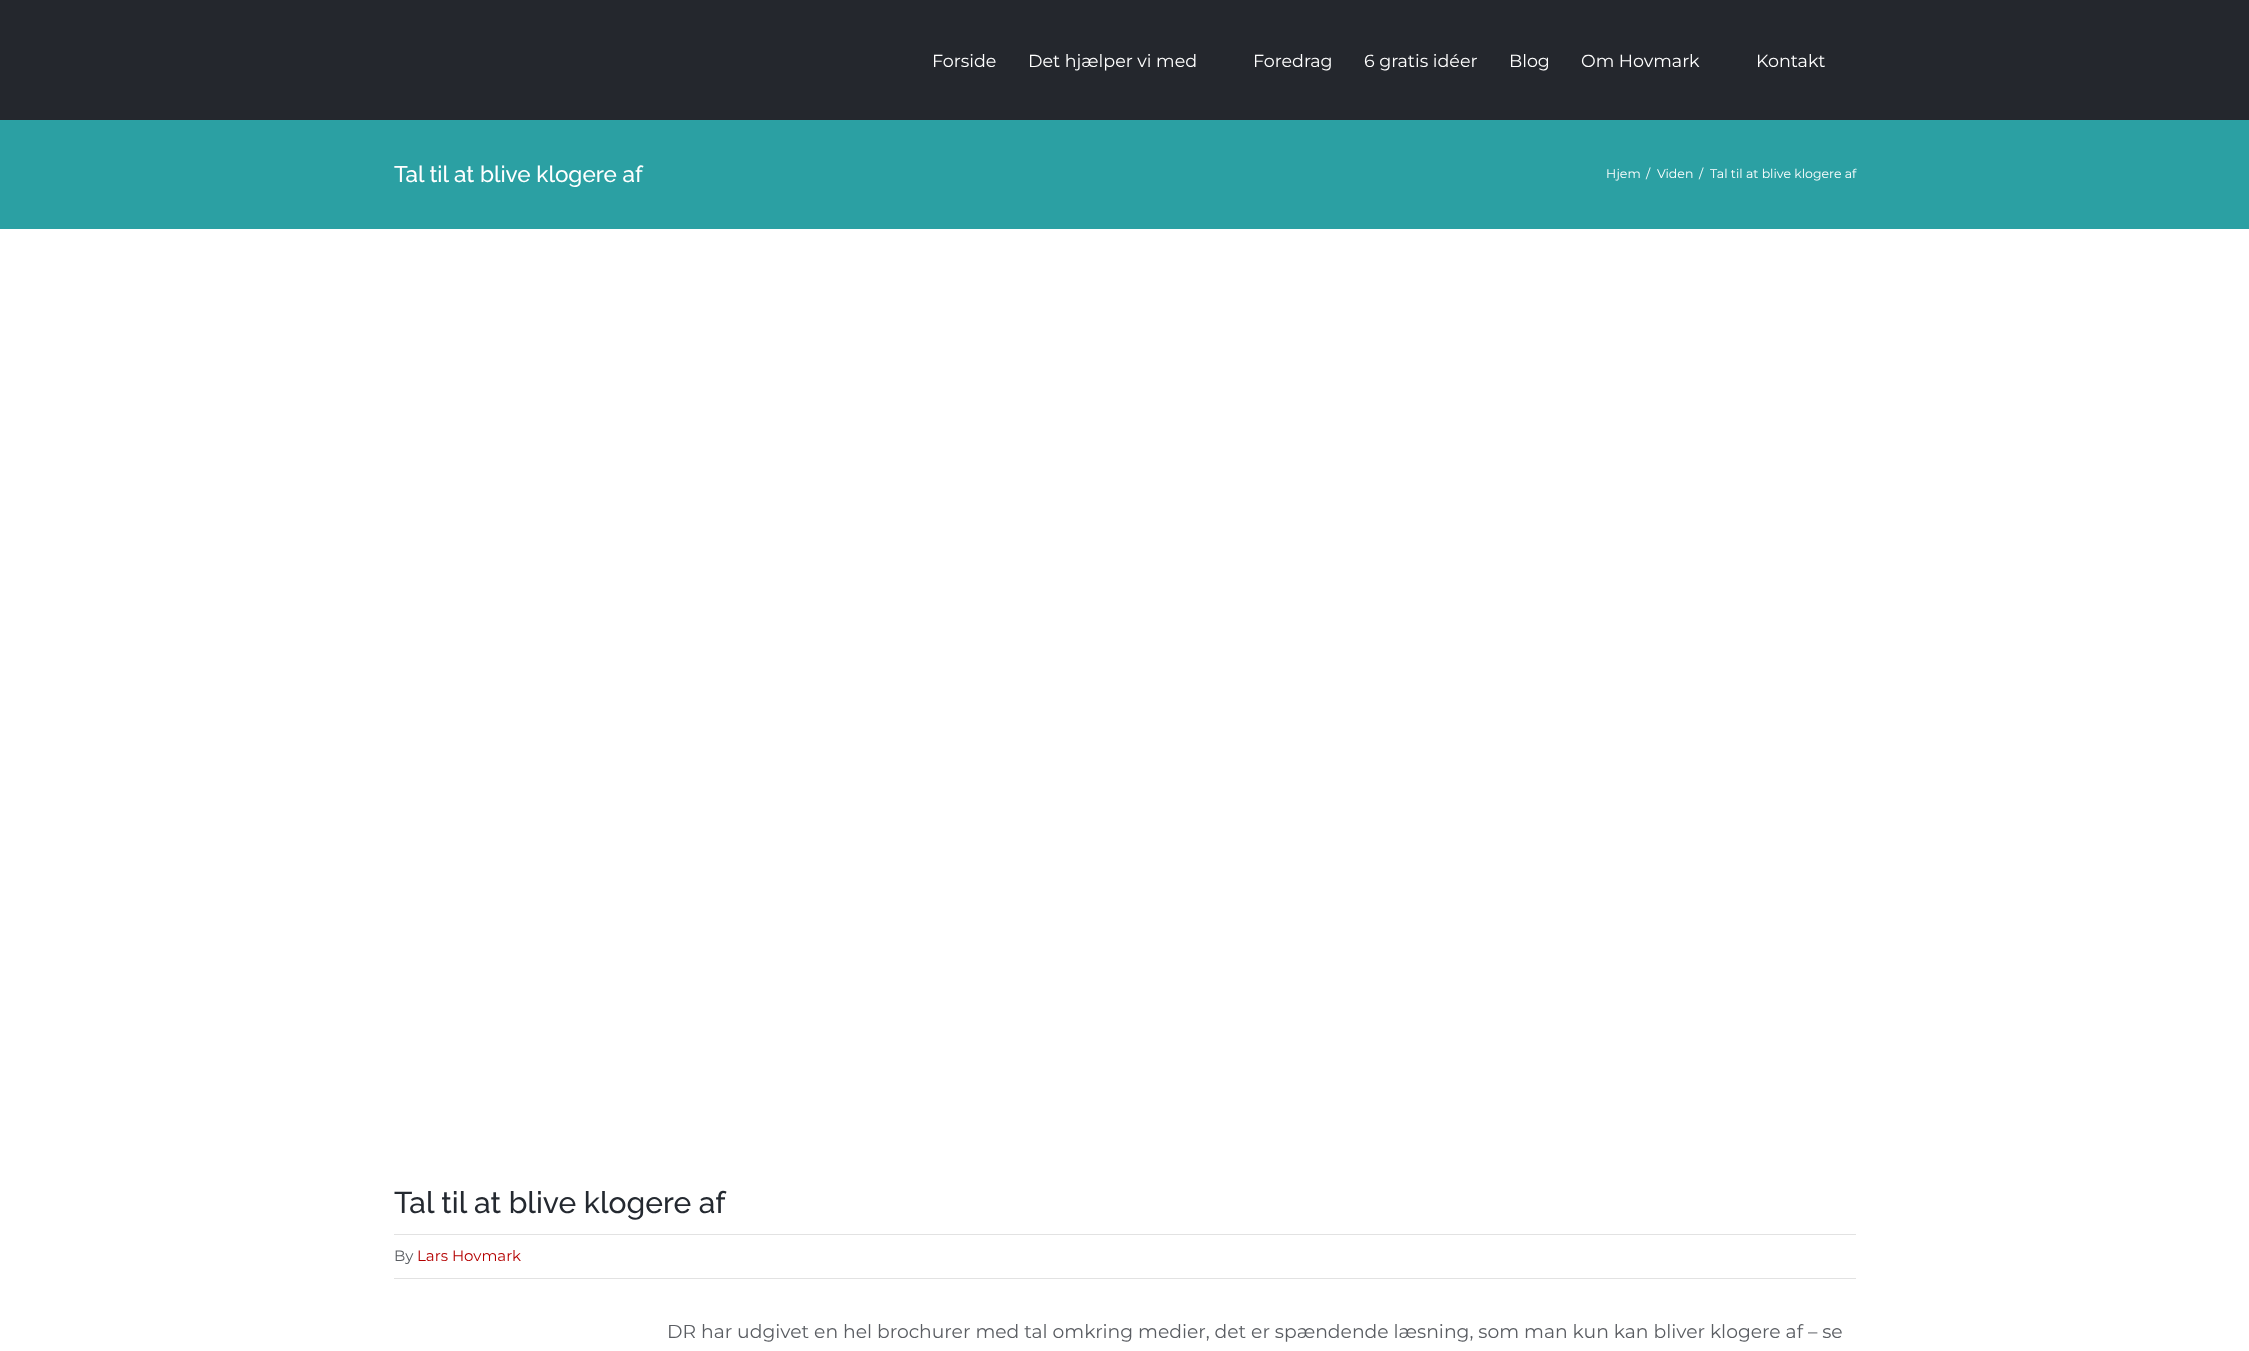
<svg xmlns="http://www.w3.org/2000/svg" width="2249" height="1351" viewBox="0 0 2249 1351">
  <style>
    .t1 { font: 17.5px Montserrat; fill: #fff; }
    .t2 { font: 100 22.5px Raleway; fill: #fff; }
    .t3 { font: 12.5px Montserrat; fill: #fff; }
    .t4 { font: 100 30px Raleway; fill: #242930; }
    .t5 { font: 15px Montserrat; fill: #5a5d62; }
    .t6 { font: 15px Montserrat; fill: #b40000; }
    .t7 { font: 18.75px Montserrat; fill: #5a5d62; }
  </style>
  <rect width="100%" height="100%" fill="#fff"/>
  <rect x="0" y="0" width="2249" height="120" fill="#24272d"/>
  <text x="932" y="67" class="t1">Forside</text>
  <text x="1028" y="67" class="t1">Det hjælper vi med</text>
  <text x="1253" y="67" class="t1">Foredrag</text>
  <text x="1364" y="67" class="t1">6 gratis idéer</text>
  <text x="1509" y="67" class="t1">Blog</text>
  <text x="1581" y="67" class="t1">Om Hovmark</text>
  <text x="1756" y="67" class="t1">Kontakt</text>
  <rect x="0" y="120" width="2249" height="109" fill="#2ba0a3"/>
  <text x="394" y="182" class="t2">Tal til at blive klogere af</text>
  <text x="1606" y="178" class="t3">Hjem</text>
  <text x="1646" y="178" class="t3">/</text>
  <text x="1657" y="178" class="t3">Viden</text>
  <text x="1699" y="178" class="t3">/</text>
  <text x="1710" y="178" class="t3">Tal til at blive klogere af</text>
  <text x="394" y="1213" class="t4">Tal til at blive klogere af</text>
  <rect x="394" y="1234" width="1462" height="1" fill="#e2e2e2"/>
  <rect x="394" y="1278" width="1462" height="1" fill="#e2e2e2"/>
  <text x="394" y="1261" class="t5">By</text>
  <text x="417" y="1261" class="t6">Lars Hovmark</text>
  <text x="667" y="1338" class="t7">DR har udgivet en hel brochurer med tal omkring medier, det er spændende læsning, som man kun kan bliver klogere af – se</text>
</svg>
